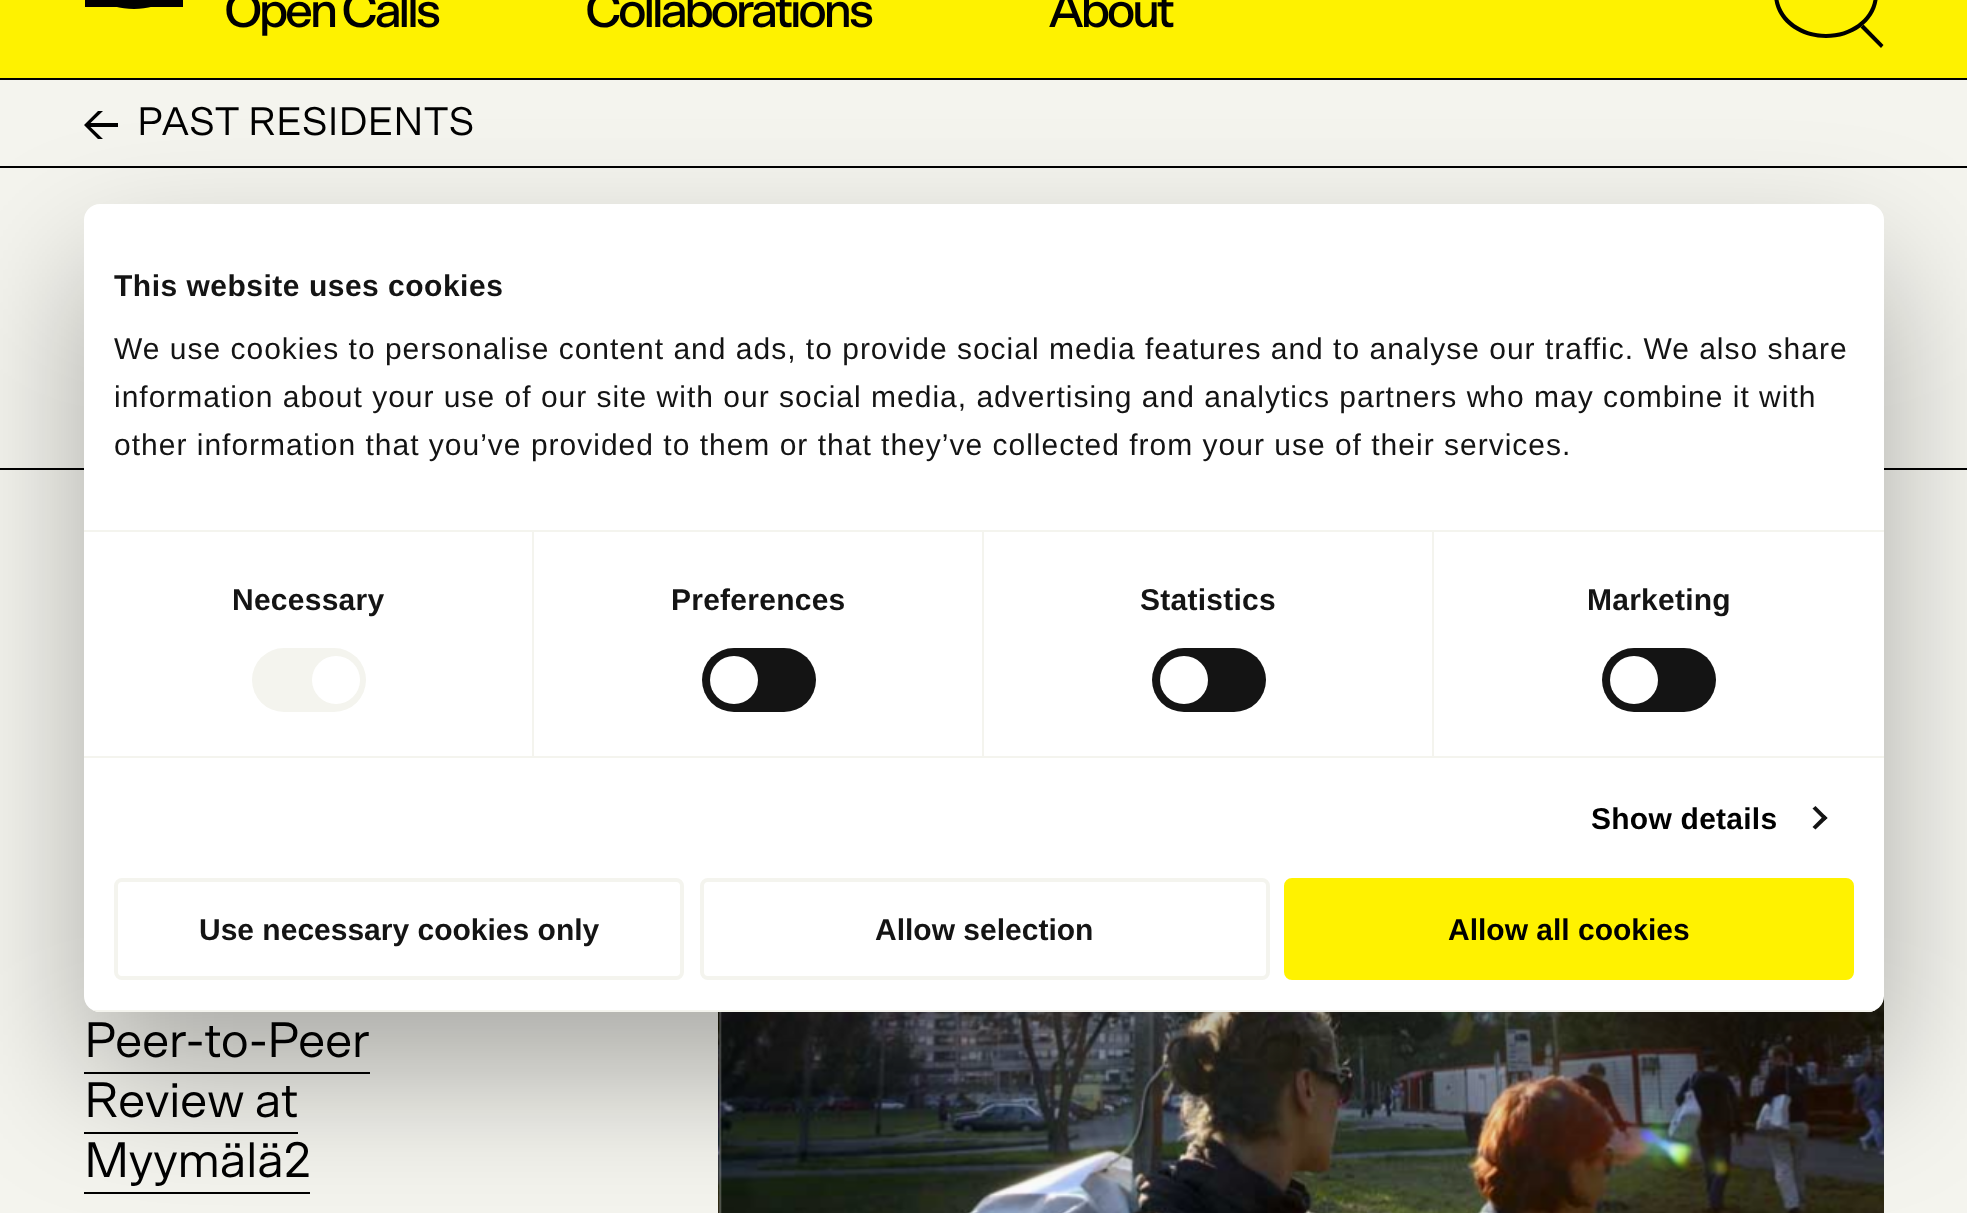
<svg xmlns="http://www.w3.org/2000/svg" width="1967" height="1213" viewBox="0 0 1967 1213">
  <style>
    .t1 { font: 500 50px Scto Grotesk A; letter-spacing: -4px; fill: #000; }
    .t2 { font: 40px Scto Grotesk A; fill: #000; }
    .t3 { font: 50px Scto Grotesk A; letter-spacing: -1px; fill: #000; }
    .t4 { font: bold 30px Liberation Sans; letter-spacing: 0.5px; fill: #141414; }
    .t5 { font: 30px Liberation Sans; letter-spacing: 1px; fill: #141414; }
    .t6 { font: bold 30px Liberation Sans; letter-spacing: 0.25px; fill: #141414; }
    .t7 { font: bold 30px Liberation Sans; letter-spacing: 0.25px; fill: #000; }
    .t8 { font: bold 30px Liberation Sans; fill: #141414; }
    .t9 { font: bold 30px Liberation Sans; fill: #000; }
  </style>
  <defs>
    <clipPath id="clip1"><rect x="84" y="204" width="1800" height="808" rx="16"/></clipPath>
  </defs>
  <rect width="100%" height="100%" fill="#fef200"/>
  <rect x="0" y="78" width="1967" height="2" fill="#000"/>
  <path d="M183-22C183-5 161 9 134 9C106 9 85-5 85-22C85-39 106-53 134-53C161-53 183-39 183-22" fill="#000"/>
  <rect x="85" y="0" width="98" height="7" fill="#000"/>
  <text x="224" y="27" class="t1">Open Calls</text>
  <text x="585" y="27" class="t1">Collaborations</text>
  <text x="1048" y="27" class="t1">About</text>
  <path d="M1826 38C1797 38 1774 19 1774-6C1774-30 1797-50 1826-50C1855-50 1878-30 1878-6C1878 19 1855 38 1826 38ZM1826-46C1800-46 1778-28 1778-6C1778 16 1800 34 1826 34C1853 34 1874 16 1874-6C1874-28 1853-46 1826-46Z" fill="#000"/>
  <path d="M1860.5 27.5L1863.5 24.5L1883.5 45L1881 48Z" fill="#000"/>
  <rect x="0" y="80" width="1967" height="86" fill="#f4f4ee"/>
  <rect x="0" y="166" width="1967" height="2" fill="#000"/>
  <text x="137" y="135" class="t2">PAST RESIDENTS</text>
  <path d="M90.5 123L103 111H98L84 125L98 139H103L90.5 127H118V123Z" fill="#000"/>
  <rect x="0" y="168" width="1967" height="300" fill="#f4f4ee"/>
  <rect x="0" y="468" width="1967" height="2" fill="#000"/>
  <rect x="0" y="470" width="1967" height="743" fill="#f4f4ee"/>
  <text x="84" y="1057" class="t3">Peer-to-Peer</text>
  <text x="84" y="1117" class="t3">Review at</text>
  <rect x="84" y="1072" width="286" height="2" fill="#000"/>
  <text x="84" y="1177" class="t3">Myymälä2</text>
  <rect x="84" y="1132" width="214" height="2" fill="#000"/>
  <rect x="84" y="1192" width="226" height="2" fill="#000"/>
  <image x="718" y="1012" width="2" height="201" href="images/2.png"/>
  <image x="719" y="996" width="1165" height="217" href="images/1.png"/>
  <rect x="84" y="268" width="1800" height="808" rx="16" fill="#0000004d" filter="blur(68px)"/>
  <rect x="84" y="204" width="1800" height="808" rx="16" fill="#fff"/>
  <rect x="84" y="530" width="1800" height="2" fill="#f4f4ee"/>
  <text x="114" y="296" class="t4">This website uses cookies</text>
  <text x="114" y="359" class="t5">We use cookies to personalise content and ads, to provide social media features and to analyse our traffic. We also share</text>
  <text x="114" y="407" class="t5">information about your use of our site with our social media, advertising and analytics partners who may combine it with</text>
  <text x="114" y="455" class="t5">other information that you’ve provided to them or that they’ve collected from your use of their services.</text>
  <rect x="84" y="756" width="1800" height="2" fill="#f4f4ee"/>
  <rect x="532" y="532" width="2" height="224" fill="#f4f4ee"/>
  <text x="232" y="610" class="t6">Necessary</text>
  <rect x="252" y="648" width="114" height="64" rx="32" fill="#f4f4ee"/>
  <circle cx="336" cy="680" r="24" fill="#fff"/>
  <rect x="982" y="532" width="2" height="224" fill="#f4f4ee"/>
  <text x="671" y="610" class="t6">Preferences</text>
  <rect x="702" y="648" width="114" height="64" rx="32" fill="#141414"/>
  <circle cx="734" cy="680" r="24" fill="#fff"/>
  <rect x="1432" y="532" width="2" height="224" fill="#f4f4ee"/>
  <text x="1140" y="610" class="t6">Statistics</text>
  <rect x="1152" y="648" width="114" height="64" rx="32" fill="#141414"/>
  <circle cx="1184" cy="680" r="24" fill="#fff"/>
  <text x="1587" y="610" class="t6">Marketing</text>
  <rect x="1602" y="648" width="114" height="64" rx="32" fill="#141414"/>
  <circle cx="1634" cy="680" r="24" fill="#fff"/>
  <text x="1591" y="829" class="t7">Show details</text>
  <path d="M1815.5 806L1827.5 818L1824.5 820.5L1812.5 808.5Z" fill="#141414"/>
  <path d="M1824.5 815L1827.5 818L1815.5 829.5L1812.5 827Z" fill="#141414"/>
  <g clip-path="url(#clip1)">
    <rect x="84" y="1010" width="1800" height="2" fill="#f4f4ee"/>
  </g>
  <rect x="116" y="880" width="566" height="98" rx="6" fill="none" stroke="#f4f4ee" stroke-width="4"/>
  <text x="199" y="940" class="t8">Use necessary cookies only</text>
  <rect x="702" y="880" width="566" height="98" rx="6" fill="none" stroke="#f4f4ee" stroke-width="4"/>
  <text x="875" y="940" class="t8">Allow selection</text>
  <rect x="1286" y="880" width="566" height="98" rx="6" fill="#fff200" stroke="#fff200" stroke-width="4"/>
  <text x="1448" y="940" class="t9">Allow all cookies</text>
</svg>
